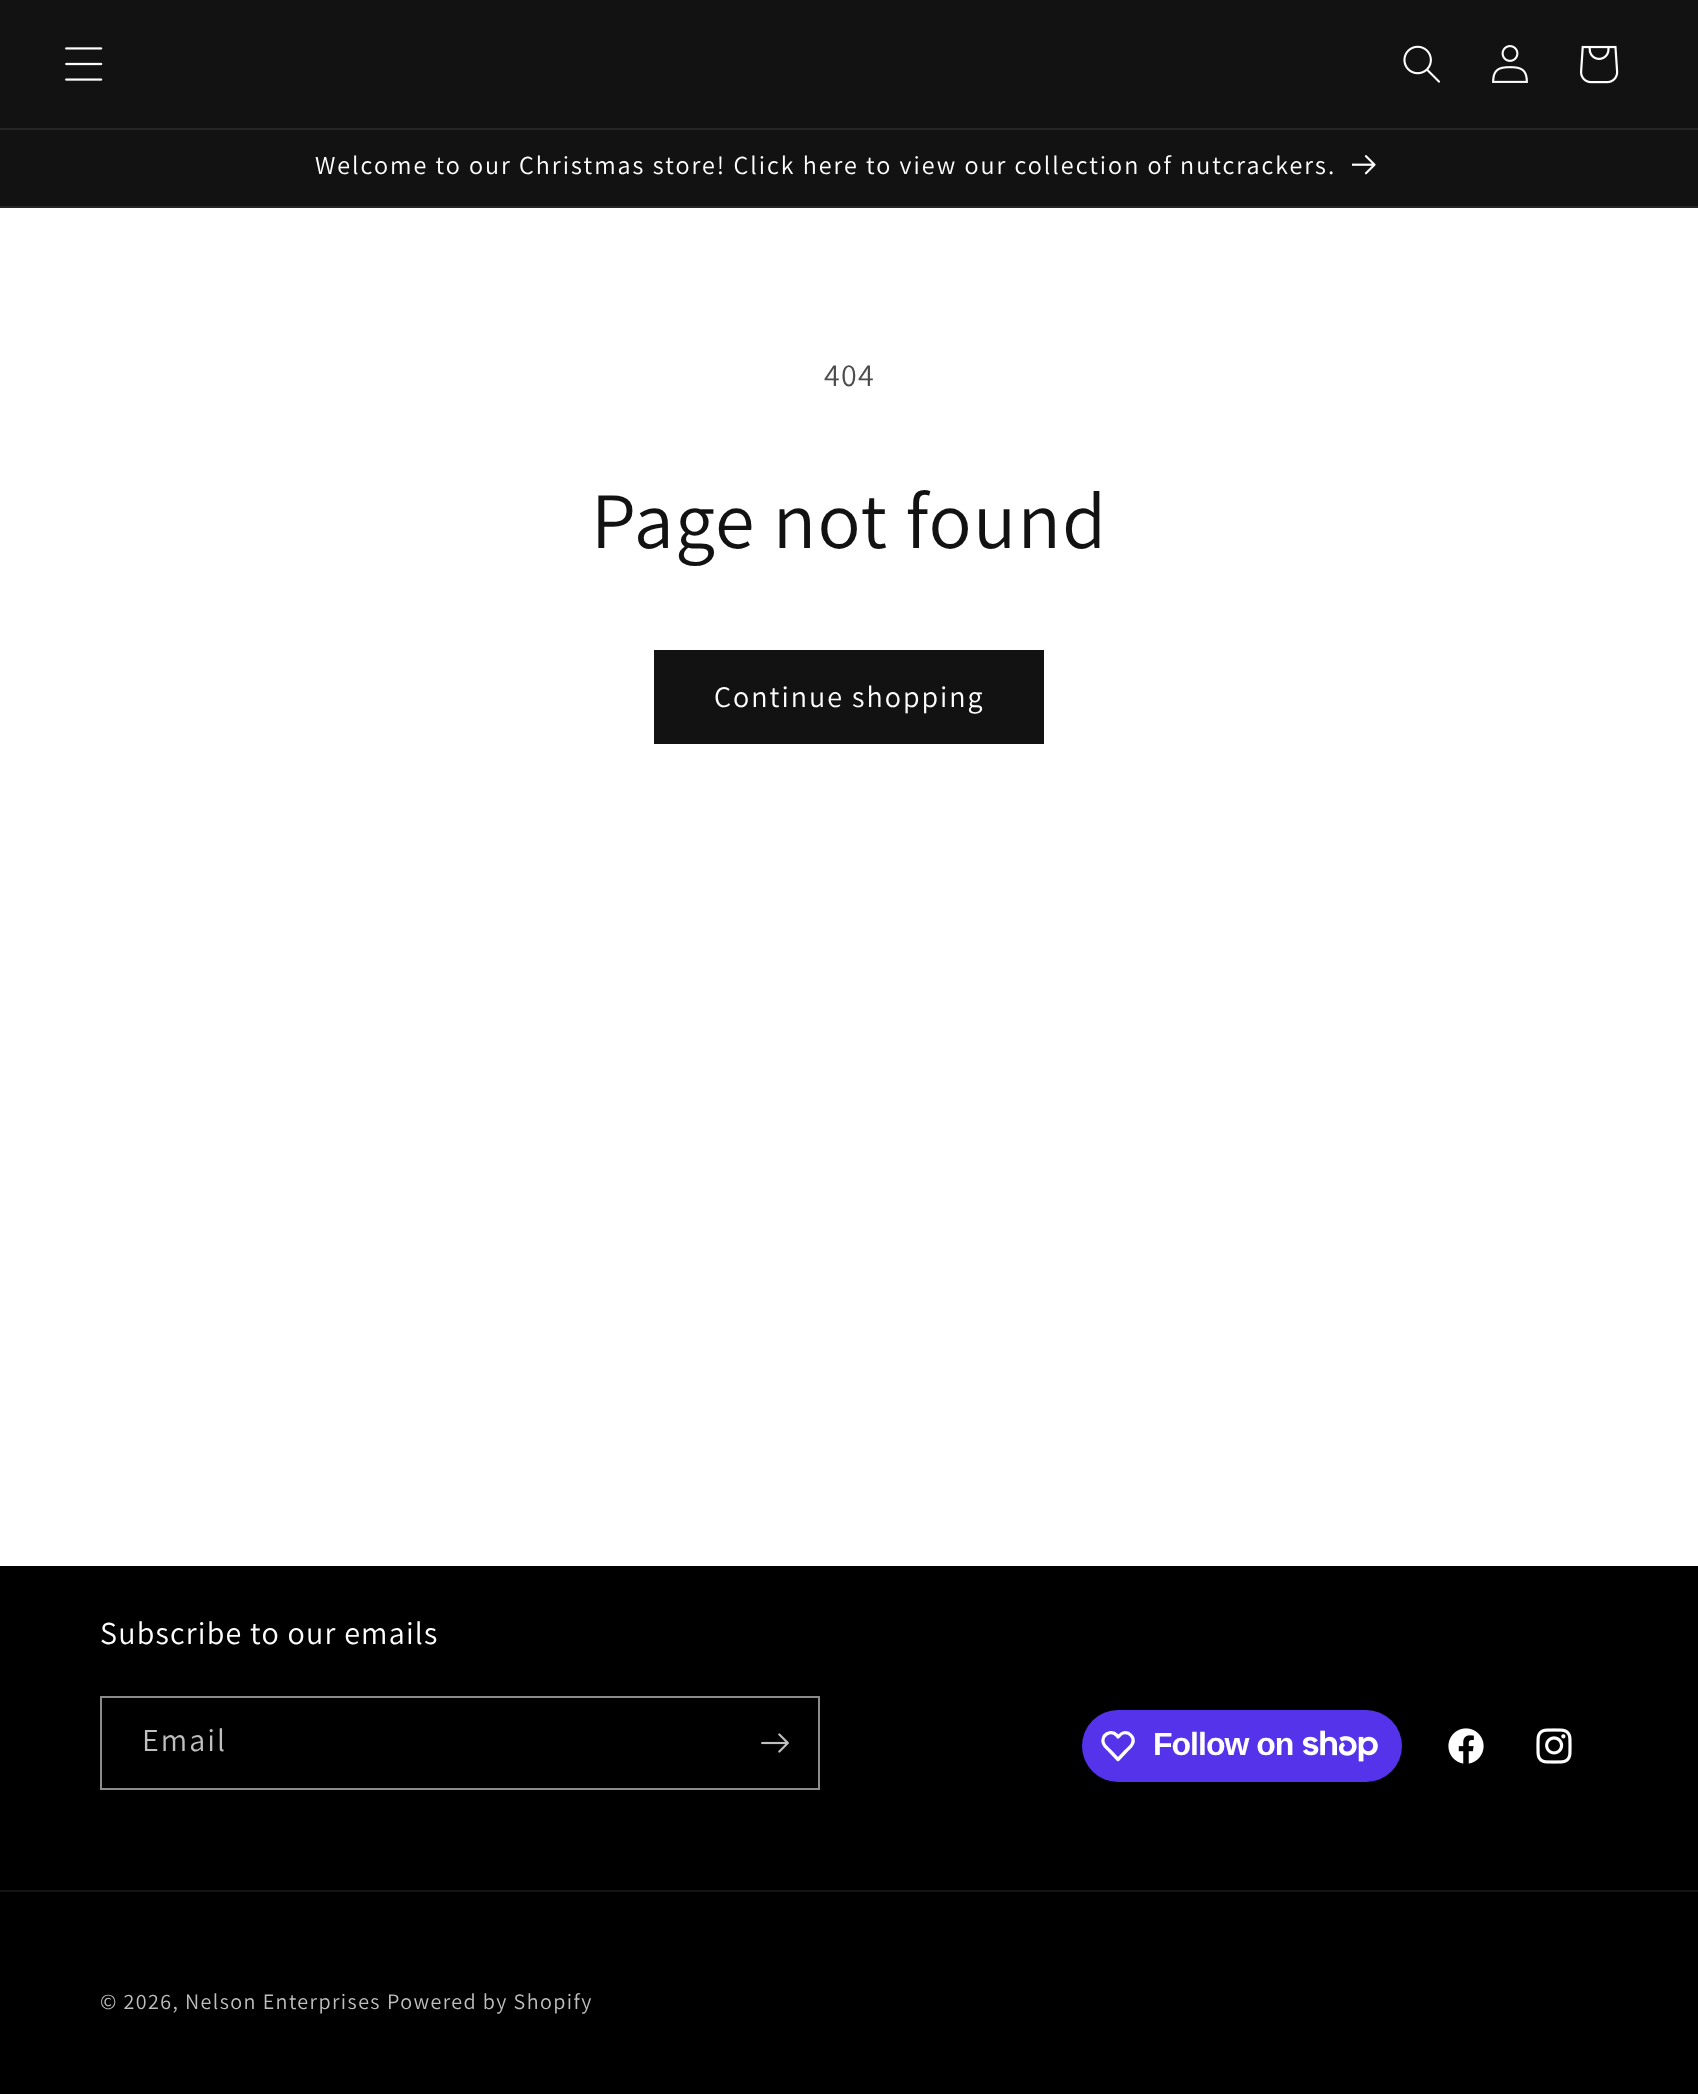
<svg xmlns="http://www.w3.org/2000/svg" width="1698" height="2094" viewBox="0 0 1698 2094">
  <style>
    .t1 { font: 26px Assistant; letter-spacing: 2px; fill: #fff; }
    .t2 { font: 32px Assistant; letter-spacing: 1.2px; fill: #4d4d4d; }
    .t3 { font: 80px Assistant; letter-spacing: 1.2px; fill: #121212; }
    .t4 { font: 30px Assistant; letter-spacing: 2px; fill: #fff; }
    .t5 { font: 32px Assistant; letter-spacing: 1.2px; fill: #fff; }
    .t6 { font: 32px Assistant; letter-spacing: 2px; fill: #bfbfbf; }
    .t7 { font: bold 32px Liberation Sans; letter-spacing: -1px; fill: #fff; }
    .t8 { font: 22px Assistant; letter-spacing: 1.4px; fill: #bfbfbf; }
  </style>
  <rect width="100%" height="100%" fill="#fff"/>
  <rect x="0" y="0" width="1698" height="128" fill="#121212"/>
  <rect x="0" y="128" width="1698" height="2" fill="#252525"/>
  <image x="65" y="47" width="38" height="34" href="images/1.png"/>
  <image x="1403" y="45" width="37" height="38" href="images/2.png"/>
  <image x="1492" y="45" width="36" height="38" href="images/3.png"/>
  <image x="1580" y="45" width="39" height="39" href="images/4.png"/>
  <rect x="0" y="130" width="1698" height="76" fill="#121212"/>
  <rect x="0" y="206" width="1698" height="2" fill="#252525"/>
  <text x="315" y="174" class="t1">Welcome to our Christmas store! Click here to view our collection of nutcrackers.</text>
  <image x="1352" y="155" width="24" height="20" href="images/5.png"/>
  <text x="824" y="386" class="t2">404</text>
  <text x="591" y="548" class="t3">Page not found</text>
  <rect x="654" y="650" width="390" height="94" fill="#121212"/>
  <text x="714" y="707" class="t4">Continue shopping</text>
  <rect x="0" y="1566" width="1698" height="528" fill="#000"/>
  <text x="100" y="1644" class="t5">Subscribe to our emails</text>
  <rect x="101" y="1697" width="718" height="92" fill="none" stroke="#8c8c8c" stroke-width="2"/>
  <text x="142" y="1751" class="t6">Email</text>
  <image x="761" y="1733" width="28" height="20" href="images/6.png"/>
  <rect x="1082" y="1710" width="320" height="72" rx="36" fill="#5433eb"/>
  <path d="M1116.5 1735L1118 1737C1119.5 1735.5 1121 1733.5 1123 1733C1129 1731 1135 1737.5 1132.5 1743.5C1131.5 1746.5 1128.5 1748.5 1126.5 1750.5L1118 1759.5L1109.5 1750.5C1107.5 1748.5 1104.5 1746.5 1103.5 1743.5C1100.5 1735.5 1110.5 1729 1116.5 1735Z" fill="none" stroke="#fff" stroke-width="3.3" stroke-linejoin="round"/>
  <text x="1153" y="1755" class="t7">Follow on</text>
  <image x="1303" y="1730" width="75" height="32" href="images/7.png"/>
  <image x="1448" y="1728" width="36" height="36" href="images/8.png"/>
  <image x="1536" y="1728" width="36" height="36" href="images/9.png"/>
  <rect x="0" y="1890" width="1698" height="2" fill="#141414"/>
  <text x="100" y="2009" class="t8">© 2026, Nelson Enterprises</text>
  <text x="387" y="2009" class="t8">Powered by Shopify</text>
</svg>
